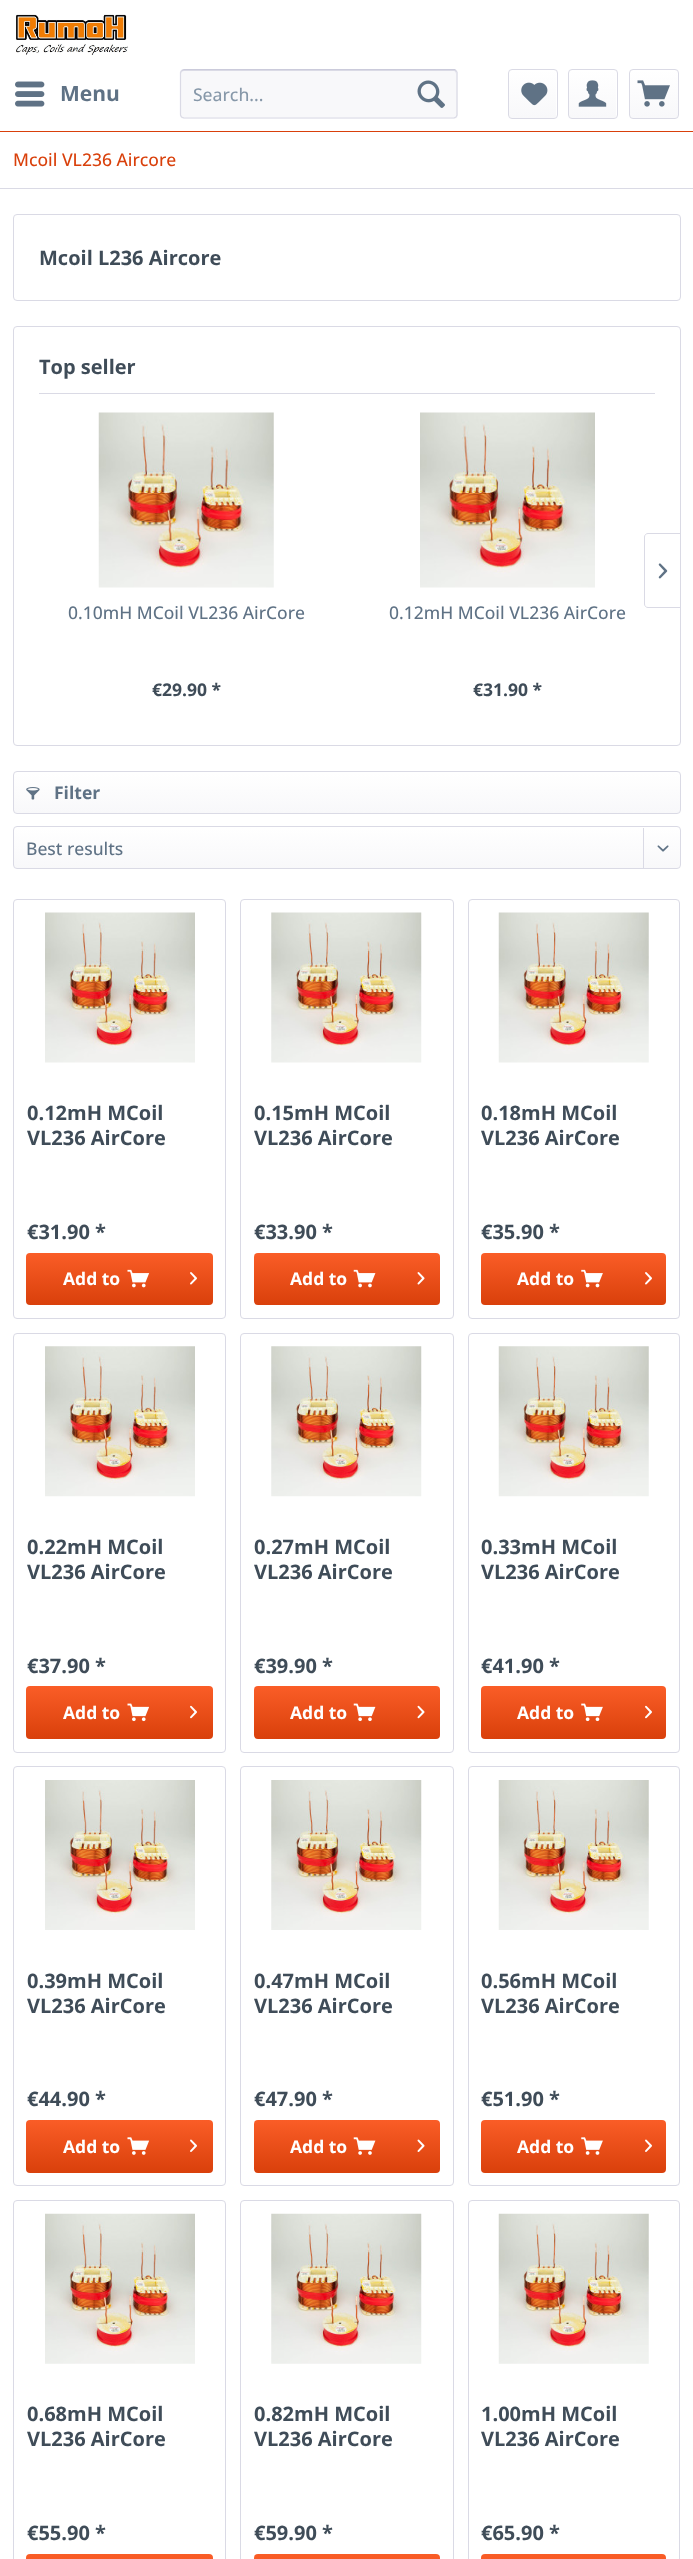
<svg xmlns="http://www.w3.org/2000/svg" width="693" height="2559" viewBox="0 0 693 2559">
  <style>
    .t1 { font: bold 21px Open Sans; fill: #5f7285; }
    .t2 { font: 500 17.5px Open Sans; fill: #8798a9; }
    .t3 { font: 500 17.5px Open Sans; fill: #d9400b; }
    .t4 { font: bold 20px Open Sans; fill: #3f4c58; }
    .t5 { font: 500 17.5px Open Sans; fill: #5f7285; }
    .t6 { font: bold 17.5px Open Sans; fill: #3f4c58; }
    .t7 { font: bold 17.5px Open Sans; fill: #5f7285; }
    .t8 { font: bold 17.5px Open Sans; fill: #fff; }
  </style>
  <defs>
    <linearGradient id="g1" gradientUnits="userSpaceOnUse" x1="533" y1="70" x2="533" y2="118"><stop offset="0" stop-color="#fff"/><stop offset="1" stop-color="#f8f8fa"/></linearGradient>
    <linearGradient id="g2" gradientUnits="userSpaceOnUse" x1="593" y1="70" x2="593" y2="118"><stop offset="0" stop-color="#fff"/><stop offset="1" stop-color="#f8f8fa"/></linearGradient>
    <linearGradient id="g3" gradientUnits="userSpaceOnUse" x1="654" y1="70" x2="654" y2="118"><stop offset="0" stop-color="#fff"/><stop offset="1" stop-color="#f8f8fa"/></linearGradient>
    <linearGradient id="g4" gradientUnits="userSpaceOnUse" x1="347" y1="773" x2="347" y2="813"><stop offset="0" stop-color="#fff"/><stop offset="1" stop-color="#f8f8fa"/></linearGradient>
    <linearGradient id="g5" gradientUnits="userSpaceOnUse" x1="347" y1="828" x2="347" y2="868"><stop offset="0" stop-color="#fff"/><stop offset="1" stop-color="#f8f8fa"/></linearGradient>
    <linearGradient id="g6" gradientUnits="userSpaceOnUse" x1="119" y1="1253" x2="119" y2="1305"><stop offset="0" stop-color="#fa5d27"/><stop offset="1" stop-color="#d9400b"/></linearGradient>
    <linearGradient id="g7" gradientUnits="userSpaceOnUse" x1="347" y1="1253" x2="347" y2="1305"><stop offset="0" stop-color="#fa5d27"/><stop offset="1" stop-color="#d9400b"/></linearGradient>
    <linearGradient id="g8" gradientUnits="userSpaceOnUse" x1="574" y1="1253" x2="574" y2="1305"><stop offset="0" stop-color="#fa5d27"/><stop offset="1" stop-color="#d9400b"/></linearGradient>
    <linearGradient id="g9" gradientUnits="userSpaceOnUse" x1="119" y1="1686" x2="119" y2="1739"><stop offset="0" stop-color="#fa5d27"/><stop offset="1" stop-color="#d9400b"/></linearGradient>
    <linearGradient id="g10" gradientUnits="userSpaceOnUse" x1="347" y1="1686" x2="347" y2="1739"><stop offset="0" stop-color="#fa5d27"/><stop offset="1" stop-color="#d9400b"/></linearGradient>
    <linearGradient id="g11" gradientUnits="userSpaceOnUse" x1="574" y1="1686" x2="574" y2="1739"><stop offset="0" stop-color="#fa5d27"/><stop offset="1" stop-color="#d9400b"/></linearGradient>
    <linearGradient id="g12" gradientUnits="userSpaceOnUse" x1="119" y1="2120" x2="119" y2="2173"><stop offset="0" stop-color="#fa5d27"/><stop offset="1" stop-color="#d9400b"/></linearGradient>
    <linearGradient id="g13" gradientUnits="userSpaceOnUse" x1="347" y1="2120" x2="347" y2="2173"><stop offset="0" stop-color="#fa5d27"/><stop offset="1" stop-color="#d9400b"/></linearGradient>
    <linearGradient id="g14" gradientUnits="userSpaceOnUse" x1="574" y1="2120" x2="574" y2="2173"><stop offset="0" stop-color="#fa5d27"/><stop offset="1" stop-color="#d9400b"/></linearGradient>
    <linearGradient id="g15" gradientUnits="userSpaceOnUse" x1="119" y1="2554" x2="119" y2="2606"><stop offset="0" stop-color="#fa5d27"/><stop offset="1" stop-color="#d9400b"/></linearGradient>
    <linearGradient id="g16" gradientUnits="userSpaceOnUse" x1="347" y1="2554" x2="347" y2="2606"><stop offset="0" stop-color="#fa5d27"/><stop offset="1" stop-color="#d9400b"/></linearGradient>
    <linearGradient id="g17" gradientUnits="userSpaceOnUse" x1="574" y1="2554" x2="574" y2="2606"><stop offset="0" stop-color="#fa5d27"/><stop offset="1" stop-color="#d9400b"/></linearGradient>
  </defs>
  <rect width="100%" height="100%" fill="#fff"/>
  <rect x="0" y="131" width="693" height="1" fill="#d9400b"/>
  <image x="16" y="14" width="112" height="41" href="images/1.png"/>
  <image x="15" y="81" width="30" height="26" href="images/2.png"/>
  <text x="60" y="101" class="t1">Menu</text>
  <rect x="180" y="69" width="278" height="50" rx="4" fill="#f8f8fa"/>
  <path d="M184 71H454C455 71 456 72 456 74V72C456 71 455 70 454 70H184C182 70 181 71 181 72V74C181 72 182 71 184 71Z" fill="#dadae5"/>
  <path d="M181.5 70.5L184 69.5H454.5L456 70.5" fill="none" stroke="#cbcbdb" stroke-width="1.2"/>
  <path d="M456 70.5L457 72.5V115L456 117L454 118H184L181.5 117L180.5 115V72.5L181.5 70.5" fill="none" stroke="#dadae5" stroke-width="1.2"/>
  <text x="193" y="101" class="t2">Search...</text>
  <image x="417" y="80" width="28" height="28" href="images/3.png"/>
  <rect x="509" y="70" width="47" height="48" rx="2.5" fill="url(#g1)"/>
  <rect x="508.5" y="69.5" width="49" height="49" rx="3.5" fill="none" stroke="#dadae5"/>
  <image x="521" y="82" width="27" height="24" href="images/4.png"/>
  <rect x="569" y="70" width="47" height="48" rx="2.5" fill="url(#g2)"/>
  <rect x="568.5" y="69.5" width="49" height="49" rx="3.5" fill="none" stroke="#dadae5"/>
  <image x="578" y="80" width="29" height="27" href="images/5.png"/>
  <rect x="630" y="70" width="48" height="48" rx="2.5" fill="url(#g3)"/>
  <rect x="629.5" y="69.5" width="49" height="49" rx="3.5" fill="none" stroke="#dadae5"/>
  <image x="637" y="80" width="33" height="27" href="images/6.png"/>
  <rect x="0" y="188" width="693" height="1" fill="#dadae5"/>
  <text x="13" y="166" class="t3">Mcoil VL236 Aircore</text>
  <rect x="13.5" y="214.5" width="667" height="86" rx="3.5" fill="none" stroke="#dadae5"/>
  <text x="39" y="265" class="t4">Mcoil L236 Aircore</text>
  <rect x="13.5" y="326.5" width="667" height="419" rx="3.5" fill="none" stroke="#dadae5"/>
  <rect x="39" y="393" width="616" height="1" fill="#dadae5"/>
  <text x="39" y="374" class="t4">Top seller</text>
  <path d="M648 533.5H680.5V607.5H648C646 607.5 644.5 606 644.5 604V537C644.5 535 646 533.5 648 533.5Z" fill="none" stroke="#dadae5"/>
  <image x="658" y="563" width="10" height="16" href="images/7.png"/>
  <image x="98" y="412" width="176" height="176" href="images/8.png"/>
  <text x="68" y="619" class="t5">0.10mH MCoil VL236 AirCore</text>
  <text x="152" y="696" class="t6">€29.90 *</text>
  <image x="420" y="412" width="175" height="176" href="images/9.png"/>
  <text x="389" y="619" class="t5">0.12mH MCoil VL236 AirCore</text>
  <text x="473" y="696" class="t6">€31.90 *</text>
  <rect x="14" y="773" width="666" height="40" rx="2.5" fill="url(#g4)"/>
  <rect x="13.5" y="771.5" width="667" height="42" rx="3.5" fill="none" stroke="#dadae5"/>
  <image x="26" y="787" width="14" height="13" href="images/10.png"/>
  <text x="54" y="799" class="t7">Filter</text>
  <rect x="14" y="828" width="666" height="40" rx="2.5" fill="url(#g5)"/>
  <rect x="13.5" y="826.5" width="667" height="42" rx="3.5" fill="none" stroke="#dadae5"/>
  <text x="26" y="855" class="t5">Best results</text>
  <rect x="643" y="828" width="1" height="41" fill="#dadae5"/>
  <image x="657" y="845" width="12" height="7" href="images/11.png"/>
  <rect x="13.5" y="899.5" width="212" height="419" rx="3.5" fill="none" stroke="#dadae5"/>
  <image x="45" y="912" width="150" height="151" href="images/12.png"/>
  <text x="27" y="1120" class="t4">0.12mH MCoil</text>
  <text x="27" y="1145" class="t4">VL236 AirCore</text>
  <text x="27" y="1239" class="t4">€31.90 *</text>
  <rect x="26" y="1253" width="187" height="52" rx="4" fill="url(#g6)"/>
  <text x="63" y="1285" class="t8">Add to</text>
  <image x="127" y="1269" width="23" height="19" href="images/13.png"/>
  <image x="190" y="1272" width="7" height="13" href="images/14.png"/>
  <rect x="240.5" y="899.5" width="213" height="419" rx="3.5" fill="none" stroke="#dadae5"/>
  <image x="271" y="912" width="151" height="151" href="images/15.png"/>
  <text x="254" y="1120" class="t4">0.15mH MCoil</text>
  <text x="254" y="1145" class="t4">VL236 AirCore</text>
  <text x="254" y="1239" class="t4">€33.90 *</text>
  <rect x="254" y="1253" width="186" height="52" rx="4" fill="url(#g7)"/>
  <text x="290" y="1285" class="t8">Add to</text>
  <image x="353" y="1269" width="23" height="19" href="images/16.png"/>
  <image x="417" y="1272" width="8" height="13" href="images/17.png"/>
  <rect x="468.5" y="899.5" width="211" height="419" rx="3.5" fill="none" stroke="#dadae5"/>
  <image x="498" y="912" width="151" height="151" href="images/18.png"/>
  <text x="481" y="1120" class="t4">0.18mH MCoil</text>
  <text x="481" y="1145" class="t4">VL236 AirCore</text>
  <text x="481" y="1239" class="t4">€35.90 *</text>
  <rect x="481" y="1253" width="185" height="52" rx="4" fill="url(#g8)"/>
  <text x="517" y="1285" class="t8">Add to</text>
  <image x="581" y="1269" width="22" height="19" href="images/19.png"/>
  <image x="645" y="1272" width="7" height="13" href="images/14.png"/>
  <rect x="13.5" y="1333.5" width="212" height="419" rx="3.5" fill="none" stroke="#dadae5"/>
  <image x="45" y="1346" width="150" height="151" href="images/20.png"/>
  <text x="27" y="1554" class="t4">0.22mH MCoil</text>
  <text x="27" y="1579" class="t4">VL236 AirCore</text>
  <text x="27" y="1673" class="t4">€37.90 *</text>
  <rect x="26" y="1686" width="187" height="53" rx="4" fill="url(#g9)"/>
  <text x="63" y="1719" class="t8">Add to</text>
  <image x="127" y="1703" width="22" height="19" href="images/21.png"/>
  <image x="190" y="1705" width="7" height="14" href="images/22.png"/>
  <rect x="240.5" y="1333.5" width="213" height="419" rx="3.5" fill="none" stroke="#dadae5"/>
  <image x="271" y="1346" width="151" height="151" href="images/23.png"/>
  <text x="254" y="1554" class="t4">0.27mH MCoil</text>
  <text x="254" y="1579" class="t4">VL236 AirCore</text>
  <text x="254" y="1673" class="t4">€39.90 *</text>
  <rect x="254" y="1686" width="186" height="53" rx="4" fill="url(#g10)"/>
  <text x="290" y="1719" class="t8">Add to</text>
  <image x="353" y="1703" width="23" height="19" href="images/24.png"/>
  <image x="417" y="1705" width="8" height="14" href="images/25.png"/>
  <rect x="468.5" y="1333.5" width="211" height="419" rx="3.5" fill="none" stroke="#dadae5"/>
  <image x="498" y="1346" width="151" height="151" href="images/26.png"/>
  <text x="481" y="1554" class="t4">0.33mH MCoil</text>
  <text x="481" y="1579" class="t4">VL236 AirCore</text>
  <text x="481" y="1673" class="t4">€41.90 *</text>
  <rect x="481" y="1686" width="185" height="53" rx="4" fill="url(#g11)"/>
  <text x="517" y="1719" class="t8">Add to</text>
  <image x="581" y="1703" width="22" height="19" href="images/27.png"/>
  <image x="645" y="1705" width="7" height="14" href="images/22.png"/>
  <rect x="13.5" y="1766.5" width="212" height="419" rx="3.5" fill="none" stroke="#dadae5"/>
  <image x="45" y="1780" width="150" height="150" href="images/28.png"/>
  <text x="27" y="1988" class="t4">0.39mH MCoil</text>
  <text x="27" y="2013" class="t4">VL236 AirCore</text>
  <text x="27" y="2106" class="t4">€44.90 *</text>
  <rect x="26" y="2120" width="187" height="53" rx="4" fill="url(#g12)"/>
  <text x="63" y="2153" class="t8">Add to</text>
  <image x="127" y="2137" width="23" height="18" href="images/29.png"/>
  <image x="190" y="2139" width="7" height="13" href="images/30.png"/>
  <rect x="240.5" y="1766.5" width="213" height="419" rx="3.5" fill="none" stroke="#dadae5"/>
  <image x="271" y="1780" width="151" height="150" href="images/31.png"/>
  <text x="254" y="1988" class="t4">0.47mH MCoil</text>
  <text x="254" y="2013" class="t4">VL236 AirCore</text>
  <text x="254" y="2106" class="t4">€47.90 *</text>
  <rect x="254" y="2120" width="186" height="53" rx="4" fill="url(#g13)"/>
  <text x="290" y="2153" class="t8">Add to</text>
  <image x="353" y="2137" width="23" height="18" href="images/32.png"/>
  <image x="417" y="2139" width="8" height="13" href="images/33.png"/>
  <rect x="468.5" y="1766.5" width="211" height="419" rx="3.5" fill="none" stroke="#dadae5"/>
  <image x="498" y="1780" width="151" height="150" href="images/34.png"/>
  <text x="481" y="1988" class="t4">0.56mH MCoil</text>
  <text x="481" y="2013" class="t4">VL236 AirCore</text>
  <text x="481" y="2106" class="t4">€51.90 *</text>
  <rect x="481" y="2120" width="185" height="53" rx="4" fill="url(#g14)"/>
  <text x="517" y="2153" class="t8">Add to</text>
  <image x="581" y="2137" width="22" height="18" href="images/35.png"/>
  <image x="645" y="2139" width="7" height="13" href="images/30.png"/>
  <rect x="13.5" y="2200.5" width="212" height="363" rx="3.5" fill="none" stroke="#dadae5"/>
  <image x="45" y="2213" width="150" height="151" href="images/36.png"/>
  <text x="27" y="2421" class="t4">0.68mH MCoil</text>
  <text x="27" y="2446" class="t4">VL236 AirCore</text>
  <text x="27" y="2540" class="t4">€55.90 *</text>
  <rect x="26" y="2554" width="187" height="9" rx="4" fill="url(#g15)"/>
  <rect x="240.5" y="2200.5" width="213" height="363" rx="3.5" fill="none" stroke="#dadae5"/>
  <image x="271" y="2213" width="151" height="151" href="images/37.png"/>
  <text x="254" y="2421" class="t4">0.82mH MCoil</text>
  <text x="254" y="2446" class="t4">VL236 AirCore</text>
  <text x="254" y="2540" class="t4">€59.90 *</text>
  <rect x="254" y="2554" width="186" height="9" rx="4" fill="url(#g16)"/>
  <rect x="468.5" y="2200.5" width="211" height="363" rx="3.5" fill="none" stroke="#dadae5"/>
  <image x="498" y="2213" width="151" height="151" href="images/38.png"/>
  <text x="481" y="2421" class="t4">1.00mH MCoil</text>
  <text x="481" y="2446" class="t4">VL236 AirCore</text>
  <text x="481" y="2540" class="t4">€65.90 *</text>
  <rect x="481" y="2554" width="185" height="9" rx="4" fill="url(#g17)"/>
</svg>
